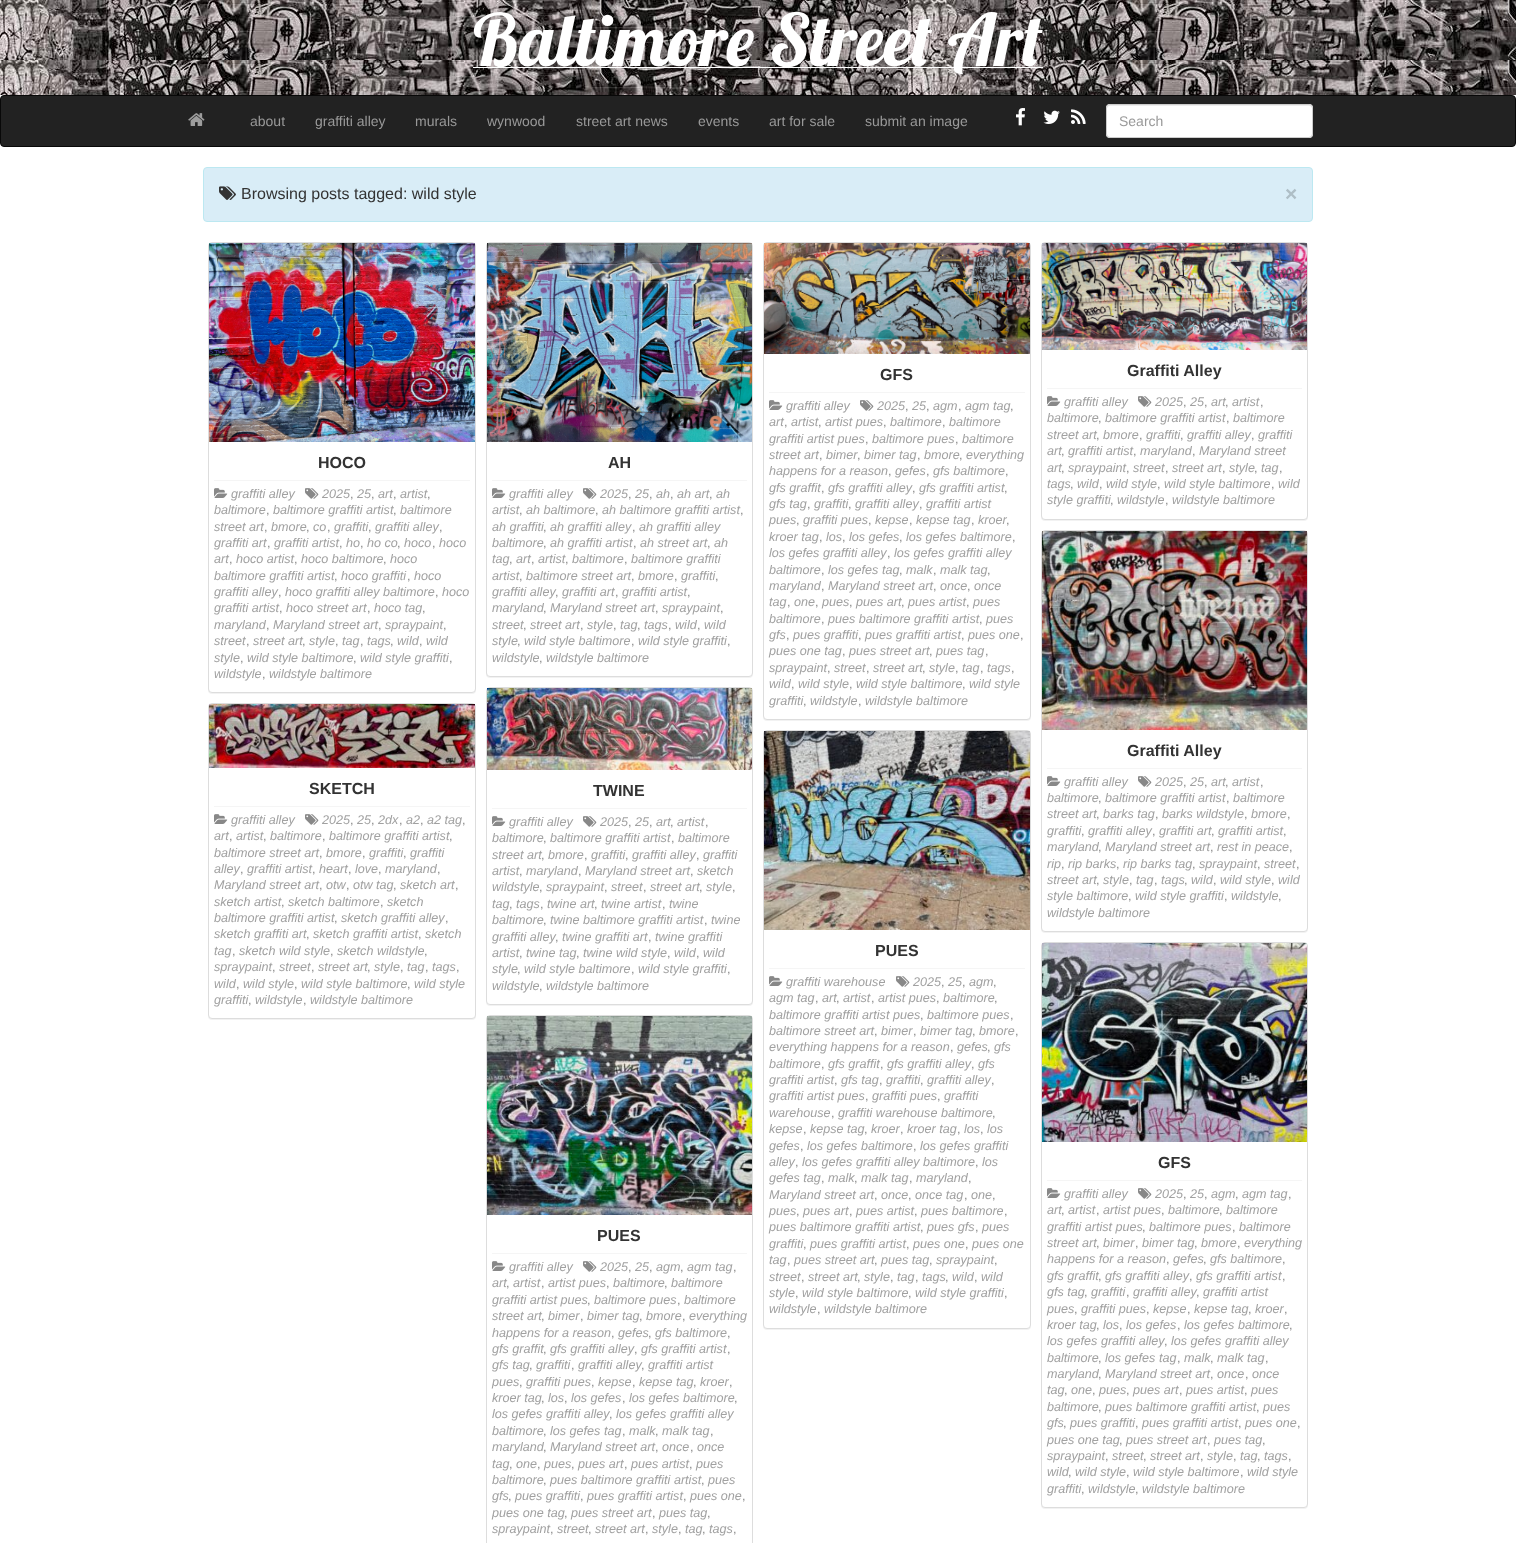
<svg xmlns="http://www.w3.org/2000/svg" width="1516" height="1543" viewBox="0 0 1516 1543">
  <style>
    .t1 { font: 72px Lobster; fill: #fff; }
    .t2 { font: 14px Liberation Sans; fill: #999; }
    .t3 { font: 16px Liberation Sans; fill: #333; }
    .t4 { font: bold 21px Liberation Sans; fill: #aebec6; }
    .t5 { font: bold 16px Liberation Sans; fill: #333; }
    .t6 { font: italic 12.6px Liberation Sans; fill: #a1a1a1; }
    .t7 { font: 12.6px Liberation Sans; fill: #888; }
  </style>
  <rect width="100%" height="100%" fill="#fff"/>
  <image x="0" y="0" width="1516" height="95" href="images/1.png"/>
  <rect x="473" y="67" width="570" height="1" fill="#fff"/>
  <text x="473" y="66" class="t1">Baltimore Street Art</text>
  <rect x="0.5" y="95.5" width="1515" height="51" rx="3.5" fill="#222" stroke="#080808"/>
  <image x="188" y="113" width="17" height="13" href="images/2.png"/>
  <text x="250" y="126" class="t2">about</text>
  <text x="315" y="126" class="t2">graffiti alley</text>
  <text x="415" y="126" class="t2">murals</text>
  <text x="487" y="126" class="t2">wynwood</text>
  <text x="576" y="126" class="t2">street art news</text>
  <text x="698" y="126" class="t2">events</text>
  <text x="769" y="126" class="t2">art for sale</text>
  <text x="865" y="126" class="t2">submit an image</text>
  <image x="1016" y="108" width="9" height="18" href="images/3.png"/>
  <image x="1043" y="110" width="17" height="14" href="images/4.png"/>
  <image x="1071" y="109" width="15" height="15" href="images/5.png"/>
  <rect x="1106" y="104" width="207" height="34" rx="4" fill="#fff"/>
  <path d="M1110 106H1309C1311 106 1312 107 1312 109C1312 107 1311 105 1309 105H1110C1108 105 1107 107 1107 109C1107 107 1108 106 1110 106Z" fill="#ececec"/>
  <rect x="1106.5" y="104.5" width="206" height="33" rx="3.5" fill="none" stroke="#ccc"/>
  <text x="1119" y="126" class="t2">Search</text>
  <rect x="203.5" y="167.5" width="1109" height="54" rx="3.5" fill="#d9edf7" stroke="#bce8f1"/>
  <image x="219" y="186" width="17" height="14" href="images/6.png"/>
  <text x="241" y="199" class="t3">Browsing posts tagged: wild style</text>
  <text x="1285" y="201" class="t4">×</text>
  <rect x="208" y="243" width="268" height="451" rx="4" fill="#0000000d" filter="blur(0.5px)"/>
  <rect x="208.5" y="242.5" width="267" height="450" rx="3.5" fill="#fff" stroke="#ddd"/>
  <image x="209" y="243" width="266" height="199" href="images/7.png"/>
  <text x="318" y="468" class="t5">HOCO</text>
  <rect x="214" y="480" width="256" height="1" fill="#f5f5f5"/>
  <image x="214" y="488" width="14" height="10" href="images/8.png"/>
  <text x="231" y="498" class="t6">graffiti alley</text>
  <image x="305" y="488" width="14" height="11" href="images/9.png"/>
  <text x="322" y="498" class="t6">2025</text>
  <text x="350" y="498" class="t7">,</text>
  <text x="357" y="498" class="t6">25</text>
  <text x="371" y="498" class="t7">,</text>
  <text x="378" y="498" class="t6">art</text>
  <text x="393" y="498" class="t7">,</text>
  <text x="400" y="498" class="t6">artist</text>
  <text x="427" y="498" class="t7">,</text>
  <text x="214" y="514" class="t6">baltimore</text>
  <text x="266" y="514" class="t7">,</text>
  <text x="273" y="514" class="t6">baltimore graffiti artist</text>
  <text x="393" y="514" class="t7">,</text>
  <text x="400" y="514" class="t6">baltimore</text>
  <text x="214" y="531" class="t6">street art</text>
  <text x="264" y="531" class="t7">,</text>
  <text x="271" y="531" class="t6">bmore</text>
  <text x="306" y="531" class="t7">,</text>
  <text x="313" y="531" class="t6">co</text>
  <text x="327" y="531" class="t7">,</text>
  <text x="334" y="531" class="t6">graffiti</text>
  <text x="368" y="531" class="t7">,</text>
  <text x="375" y="531" class="t6">graffiti alley</text>
  <text x="439" y="531" class="t7">,</text>
  <text x="214" y="547" class="t6">graffiti art</text>
  <text x="267" y="547" class="t7">,</text>
  <text x="274" y="547" class="t6">graffiti artist</text>
  <text x="346" y="547" class="t6">ho</text>
  <text x="367" y="547" class="t6">ho co</text>
  <text x="404" y="547" class="t6">hoco</text>
  <text x="439" y="547" class="t6">hoco</text>
  <text x="339" y="547" class="t7">,</text>
  <text x="360" y="547" class="t7">,</text>
  <text x="397" y="547" class="t7">,</text>
  <text x="432" y="547" class="t7">,</text>
  <text x="214" y="563" class="t6">art</text>
  <text x="229" y="563" class="t7">,</text>
  <text x="236" y="563" class="t6">hoco artist</text>
  <text x="294" y="563" class="t7">,</text>
  <text x="301" y="563" class="t6">hoco baltimore</text>
  <text x="383" y="563" class="t7">,</text>
  <text x="390" y="563" class="t6">hoco</text>
  <text x="214" y="580" class="t6">baltimore graffiti artist</text>
  <text x="334" y="580" class="t7">,</text>
  <text x="341" y="580" class="t6">hoco graffiti</text>
  <text x="407" y="580" class="t7">,</text>
  <text x="414" y="580" class="t6">hoco</text>
  <text x="214" y="596" class="t6">graffiti alley</text>
  <text x="278" y="596" class="t7">,</text>
  <text x="285" y="596" class="t6">hoco graffiti alley baltimore</text>
  <text x="435" y="596" class="t7">,</text>
  <text x="442" y="596" class="t6">hoco</text>
  <text x="214" y="612" class="t6">graffiti artist</text>
  <text x="279" y="612" class="t7">,</text>
  <text x="286" y="612" class="t6">hoco street art</text>
  <text x="374" y="612" class="t6">hoco tag</text>
  <text x="367" y="612" class="t7">,</text>
  <text x="422" y="612" class="t7">,</text>
  <text x="214" y="629" class="t6">maryland</text>
  <text x="266" y="629" class="t7">,</text>
  <text x="273" y="629" class="t6">Maryland street art</text>
  <text x="378" y="629" class="t7">,</text>
  <text x="385" y="629" class="t6">spraypaint</text>
  <text x="443" y="629" class="t7">,</text>
  <text x="214" y="645" class="t6">street</text>
  <text x="246" y="645" class="t7">,</text>
  <text x="253" y="645" class="t6">street art</text>
  <text x="302" y="645" class="t7">,</text>
  <text x="309" y="645" class="t6">style</text>
  <text x="335" y="645" class="t7">,</text>
  <text x="342" y="645" class="t6">tag</text>
  <text x="360" y="645" class="t7">,</text>
  <text x="367" y="645" class="t6">tags</text>
  <text x="390" y="645" class="t7">,</text>
  <text x="397" y="645" class="t6">wild</text>
  <text x="419" y="645" class="t7">,</text>
  <text x="426" y="645" class="t6">wild</text>
  <text x="214" y="662" class="t6">style</text>
  <text x="240" y="662" class="t7">,</text>
  <text x="247" y="662" class="t6">wild style baltimore</text>
  <text x="353" y="662" class="t7">,</text>
  <text x="360" y="662" class="t6">wild style graffiti</text>
  <text x="449" y="662" class="t7">,</text>
  <text x="214" y="678" class="t6">wildstyle</text>
  <text x="262" y="678" class="t7">,</text>
  <text x="269" y="678" class="t6">wildstyle baltimore</text>
  <rect x="486" y="243" width="267" height="435" rx="4" fill="#0000000d" filter="blur(0.5px)"/>
  <rect x="486.5" y="242.5" width="266" height="434" rx="3.5" fill="#fff" stroke="#ddd"/>
  <image x="487" y="243" width="265" height="199" href="images/10.png"/>
  <text x="608" y="468" class="t5">AH</text>
  <rect x="492" y="480" width="255" height="1" fill="#f5f5f5"/>
  <image x="492" y="488" width="14" height="10" href="images/8.png"/>
  <text x="509" y="498" class="t6">graffiti alley</text>
  <image x="583" y="488" width="14" height="11" href="images/9.png"/>
  <text x="600" y="498" class="t6">2025</text>
  <text x="628" y="498" class="t7">,</text>
  <text x="635" y="498" class="t6">25</text>
  <text x="649" y="498" class="t7">,</text>
  <text x="656" y="498" class="t6">ah</text>
  <text x="670" y="498" class="t7">,</text>
  <text x="677" y="498" class="t6">ah art</text>
  <text x="709" y="498" class="t7">,</text>
  <text x="716" y="498" class="t6">ah</text>
  <text x="492" y="514" class="t6">artist</text>
  <text x="519" y="514" class="t7">,</text>
  <text x="526" y="514" class="t6">ah baltimore</text>
  <text x="595" y="514" class="t7">,</text>
  <text x="602" y="514" class="t6">ah baltimore graffiti artist</text>
  <text x="740" y="514" class="t7">,</text>
  <text x="492" y="531" class="t6">ah graffiti</text>
  <text x="543" y="531" class="t7">,</text>
  <text x="550" y="531" class="t6">ah graffiti alley</text>
  <text x="639" y="531" class="t6">ah graffiti alley</text>
  <text x="632" y="531" class="t7">,</text>
  <text x="492" y="547" class="t6">baltimore</text>
  <text x="543" y="547" class="t7">,</text>
  <text x="550" y="547" class="t6">ah graffiti artist</text>
  <text x="633" y="547" class="t7">,</text>
  <text x="640" y="547" class="t6">ah street art</text>
  <text x="707" y="547" class="t7">,</text>
  <text x="714" y="547" class="t6">ah</text>
  <text x="492" y="563" class="t6">tag</text>
  <text x="509" y="563" class="t7">,</text>
  <text x="516" y="563" class="t6">art</text>
  <text x="531" y="563" class="t7">,</text>
  <text x="538" y="563" class="t6">artist</text>
  <text x="565" y="563" class="t7">,</text>
  <text x="572" y="563" class="t6">baltimore</text>
  <text x="624" y="563" class="t7">,</text>
  <text x="631" y="563" class="t6">baltimore graffiti</text>
  <text x="492" y="580" class="t6">artist</text>
  <text x="519" y="580" class="t7">,</text>
  <text x="526" y="580" class="t6">baltimore street art</text>
  <text x="631" y="580" class="t7">,</text>
  <text x="638" y="580" class="t6">bmore</text>
  <text x="674" y="580" class="t7">,</text>
  <text x="681" y="580" class="t6">graffiti</text>
  <text x="715" y="580" class="t7">,</text>
  <text x="492" y="596" class="t6">graffiti alley</text>
  <text x="555" y="596" class="t7">,</text>
  <text x="562" y="596" class="t6">graffiti art</text>
  <text x="615" y="596" class="t7">,</text>
  <text x="622" y="596" class="t6">graffiti artist</text>
  <text x="687" y="596" class="t7">,</text>
  <text x="492" y="612" class="t6">maryland</text>
  <text x="543" y="612" class="t7">,</text>
  <text x="550" y="612" class="t6">Maryland street art</text>
  <text x="655" y="612" class="t7">,</text>
  <text x="662" y="612" class="t6">spraypaint</text>
  <text x="720" y="612" class="t7">,</text>
  <text x="492" y="629" class="t6">street</text>
  <text x="523" y="629" class="t7">,</text>
  <text x="530" y="629" class="t6">street art</text>
  <text x="580" y="629" class="t7">,</text>
  <text x="587" y="629" class="t6">style</text>
  <text x="613" y="629" class="t7">,</text>
  <text x="620" y="629" class="t6">tag</text>
  <text x="637" y="629" class="t7">,</text>
  <text x="644" y="629" class="t6">tags</text>
  <text x="668" y="629" class="t7">,</text>
  <text x="675" y="629" class="t6">wild</text>
  <text x="697" y="629" class="t7">,</text>
  <text x="704" y="629" class="t6">wild</text>
  <text x="492" y="645" class="t6">style</text>
  <text x="517" y="645" class="t7">,</text>
  <text x="524" y="645" class="t6">wild style baltimore</text>
  <text x="631" y="645" class="t7">,</text>
  <text x="638" y="645" class="t6">wild style graffiti</text>
  <text x="727" y="645" class="t7">,</text>
  <text x="492" y="662" class="t6">wildstyle</text>
  <text x="539" y="662" class="t7">,</text>
  <text x="546" y="662" class="t6">wildstyle baltimore</text>
  <rect x="763" y="243" width="268" height="478" rx="4" fill="#0000000d" filter="blur(0.5px)"/>
  <rect x="763.5" y="242.5" width="267" height="477" rx="3.5" fill="#fff" stroke="#ddd"/>
  <image x="764" y="243" width="266" height="111" href="images/11.png"/>
  <text x="880" y="380" class="t5">GFS</text>
  <rect x="769" y="392" width="256" height="1" fill="#f5f5f5"/>
  <image x="769" y="400" width="14" height="10" href="images/8.png"/>
  <text x="786" y="410" class="t6">graffiti alley</text>
  <image x="860" y="400" width="14" height="11" href="images/9.png"/>
  <text x="877" y="410" class="t6">2025</text>
  <text x="905" y="410" class="t7">,</text>
  <text x="912" y="410" class="t6">25</text>
  <text x="926" y="410" class="t7">,</text>
  <text x="933" y="410" class="t6">agm</text>
  <text x="958" y="410" class="t7">,</text>
  <text x="965" y="410" class="t6">agm tag</text>
  <text x="1010" y="410" class="t7">,</text>
  <text x="769" y="426" class="t6">art</text>
  <text x="784" y="426" class="t7">,</text>
  <text x="791" y="426" class="t6">artist</text>
  <text x="818" y="426" class="t7">,</text>
  <text x="825" y="426" class="t6">artist pues</text>
  <text x="883" y="426" class="t7">,</text>
  <text x="890" y="426" class="t6">baltimore</text>
  <text x="942" y="426" class="t7">,</text>
  <text x="949" y="426" class="t6">baltimore</text>
  <text x="769" y="443" class="t6">graffiti artist pues</text>
  <text x="865" y="443" class="t7">,</text>
  <text x="872" y="443" class="t6">baltimore pues</text>
  <text x="955" y="443" class="t7">,</text>
  <text x="962" y="443" class="t6">baltimore</text>
  <text x="769" y="459" class="t6">street art</text>
  <text x="819" y="459" class="t7">,</text>
  <text x="826" y="459" class="t6">bimer</text>
  <text x="857" y="459" class="t7">,</text>
  <text x="864" y="459" class="t6">bimer tag</text>
  <text x="917" y="459" class="t7">,</text>
  <text x="924" y="459" class="t6">bmore</text>
  <text x="959" y="459" class="t7">,</text>
  <text x="966" y="459" class="t6">everything</text>
  <text x="769" y="475" class="t6">happens for a reason</text>
  <text x="888" y="475" class="t7">,</text>
  <text x="895" y="475" class="t6">gefes</text>
  <text x="926" y="475" class="t7">,</text>
  <text x="933" y="475" class="t6">gfs baltimore</text>
  <text x="1005" y="475" class="t7">,</text>
  <text x="769" y="492" class="t6">gfs graffit</text>
  <text x="821" y="492" class="t7">,</text>
  <text x="828" y="492" class="t6">gfs graffiti alley</text>
  <text x="912" y="492" class="t7">,</text>
  <text x="919" y="492" class="t6">gfs graffiti artist</text>
  <text x="1004" y="492" class="t7">,</text>
  <text x="769" y="508" class="t6">gfs tag</text>
  <text x="807" y="508" class="t7">,</text>
  <text x="814" y="508" class="t6">graffiti</text>
  <text x="848" y="508" class="t7">,</text>
  <text x="855" y="508" class="t6">graffiti alley</text>
  <text x="919" y="508" class="t7">,</text>
  <text x="926" y="508" class="t6">graffiti artist</text>
  <text x="769" y="524" class="t6">pues</text>
  <text x="796" y="524" class="t7">,</text>
  <text x="803" y="524" class="t6">graffiti pues</text>
  <text x="868" y="524" class="t7">,</text>
  <text x="875" y="524" class="t6">kepse</text>
  <text x="909" y="524" class="t7">,</text>
  <text x="916" y="524" class="t6">kepse tag</text>
  <text x="971" y="524" class="t7">,</text>
  <text x="978" y="524" class="t6">kroer</text>
  <text x="1006" y="524" class="t7">,</text>
  <text x="769" y="541" class="t6">kroer tag</text>
  <text x="819" y="541" class="t7">,</text>
  <text x="826" y="541" class="t6">los</text>
  <text x="842" y="541" class="t7">,</text>
  <text x="849" y="541" class="t6">los gefes</text>
  <text x="899" y="541" class="t7">,</text>
  <text x="906" y="541" class="t6">los gefes baltimore</text>
  <text x="1012" y="541" class="t7">,</text>
  <text x="769" y="557" class="t6">los gefes graffiti alley</text>
  <text x="894" y="557" class="t6">los gefes graffiti alley</text>
  <text x="887" y="557" class="t7">,</text>
  <text x="769" y="574" class="t6">baltimore</text>
  <text x="821" y="574" class="t7">,</text>
  <text x="828" y="574" class="t6">los gefes tag</text>
  <text x="899" y="574" class="t7">,</text>
  <text x="906" y="574" class="t6">malk</text>
  <text x="933" y="574" class="t7">,</text>
  <text x="940" y="574" class="t6">malk tag</text>
  <text x="987" y="574" class="t7">,</text>
  <text x="769" y="590" class="t6">maryland</text>
  <text x="821" y="590" class="t7">,</text>
  <text x="828" y="590" class="t6">Maryland street art</text>
  <text x="933" y="590" class="t7">,</text>
  <text x="940" y="590" class="t6">once</text>
  <text x="967" y="590" class="t7">,</text>
  <text x="974" y="590" class="t6">once</text>
  <text x="769" y="606" class="t6">tag</text>
  <text x="787" y="606" class="t7">,</text>
  <text x="794" y="606" class="t6">one</text>
  <text x="815" y="606" class="t7">,</text>
  <text x="822" y="606" class="t6">pues</text>
  <text x="849" y="606" class="t7">,</text>
  <text x="856" y="606" class="t6">pues art</text>
  <text x="901" y="606" class="t7">,</text>
  <text x="908" y="606" class="t6">pues artist</text>
  <text x="966" y="606" class="t7">,</text>
  <text x="973" y="606" class="t6">pues</text>
  <text x="769" y="623" class="t6">baltimore</text>
  <text x="821" y="623" class="t7">,</text>
  <text x="828" y="623" class="t6">pues baltimore graffiti artist</text>
  <text x="979" y="623" class="t7">,</text>
  <text x="986" y="623" class="t6">pues</text>
  <text x="769" y="639" class="t6">gfs</text>
  <text x="786" y="639" class="t7">,</text>
  <text x="793" y="639" class="t6">pues graffiti</text>
  <text x="858" y="639" class="t7">,</text>
  <text x="865" y="639" class="t6">pues graffiti artist</text>
  <text x="961" y="639" class="t7">,</text>
  <text x="968" y="639" class="t6">pues one</text>
  <text x="1020" y="639" class="t7">,</text>
  <text x="769" y="655" class="t6">pues one tag</text>
  <text x="842" y="655" class="t7">,</text>
  <text x="849" y="655" class="t6">pues street art</text>
  <text x="929" y="655" class="t7">,</text>
  <text x="936" y="655" class="t6">pues tag</text>
  <text x="985" y="655" class="t7">,</text>
  <text x="769" y="672" class="t6">spraypaint</text>
  <text x="827" y="672" class="t7">,</text>
  <text x="834" y="672" class="t6">street</text>
  <text x="873" y="672" class="t6">street art</text>
  <text x="929" y="672" class="t6">style</text>
  <text x="962" y="672" class="t6">tag</text>
  <text x="987" y="672" class="t6">tags</text>
  <text x="866" y="672" class="t7">,</text>
  <text x="922" y="672" class="t7">,</text>
  <text x="955" y="672" class="t7">,</text>
  <text x="980" y="672" class="t7">,</text>
  <text x="1011" y="672" class="t7">,</text>
  <text x="769" y="688" class="t6">wild</text>
  <text x="791" y="688" class="t7">,</text>
  <text x="798" y="688" class="t6">wild style</text>
  <text x="849" y="688" class="t7">,</text>
  <text x="856" y="688" class="t6">wild style baltimore</text>
  <text x="962" y="688" class="t7">,</text>
  <text x="969" y="688" class="t6">wild style</text>
  <text x="769" y="705" class="t6">graffiti</text>
  <text x="803" y="705" class="t7">,</text>
  <text x="810" y="705" class="t6">wildstyle</text>
  <text x="858" y="705" class="t7">,</text>
  <text x="865" y="705" class="t6">wildstyle baltimore</text>
  <rect x="1041" y="243" width="267" height="278" rx="4" fill="#0000000d" filter="blur(0.5px)"/>
  <rect x="1041.5" y="242.5" width="266" height="277" rx="3.5" fill="#fff" stroke="#ddd"/>
  <image x="1042" y="243" width="265" height="107" href="images/12.png"/>
  <text x="1127" y="376" class="t5">Graffiti Alley</text>
  <rect x="1047" y="388" width="255" height="1" fill="#f5f5f5"/>
  <image x="1047" y="396" width="14" height="10" href="images/8.png"/>
  <text x="1064" y="406" class="t6">graffiti alley</text>
  <image x="1138" y="396" width="14" height="11" href="images/9.png"/>
  <text x="1155" y="406" class="t6">2025</text>
  <text x="1183" y="406" class="t7">,</text>
  <text x="1190" y="406" class="t6">25</text>
  <text x="1204" y="406" class="t7">,</text>
  <text x="1211" y="406" class="t6">art</text>
  <text x="1225" y="406" class="t7">,</text>
  <text x="1232" y="406" class="t6">artist</text>
  <text x="1260" y="406" class="t7">,</text>
  <text x="1047" y="422" class="t6">baltimore</text>
  <text x="1098" y="422" class="t7">,</text>
  <text x="1105" y="422" class="t6">baltimore graffiti artist</text>
  <text x="1226" y="422" class="t7">,</text>
  <text x="1233" y="422" class="t6">baltimore</text>
  <text x="1047" y="439" class="t6">street art</text>
  <text x="1096" y="439" class="t7">,</text>
  <text x="1103" y="439" class="t6">bmore</text>
  <text x="1139" y="439" class="t7">,</text>
  <text x="1146" y="439" class="t6">graffiti</text>
  <text x="1180" y="439" class="t7">,</text>
  <text x="1187" y="439" class="t6">graffiti alley</text>
  <text x="1251" y="439" class="t7">,</text>
  <text x="1258" y="439" class="t6">graffiti</text>
  <text x="1047" y="455" class="t6">art</text>
  <text x="1061" y="455" class="t7">,</text>
  <text x="1068" y="455" class="t6">graffiti artist</text>
  <text x="1133" y="455" class="t7">,</text>
  <text x="1140" y="455" class="t6">maryland</text>
  <text x="1192" y="455" class="t7">,</text>
  <text x="1199" y="455" class="t6">Maryland street</text>
  <text x="1047" y="472" class="t6">art</text>
  <text x="1061" y="472" class="t7">,</text>
  <text x="1068" y="472" class="t6">spraypaint</text>
  <text x="1126" y="472" class="t7">,</text>
  <text x="1133" y="472" class="t6">street</text>
  <text x="1165" y="472" class="t7">,</text>
  <text x="1172" y="472" class="t6">street art</text>
  <text x="1222" y="472" class="t7">,</text>
  <text x="1229" y="472" class="t6">style</text>
  <text x="1254" y="472" class="t7">,</text>
  <text x="1261" y="472" class="t6">tag</text>
  <text x="1279" y="472" class="t7">,</text>
  <text x="1047" y="488" class="t6">tags</text>
  <text x="1070" y="488" class="t7">,</text>
  <text x="1077" y="488" class="t6">wild</text>
  <text x="1099" y="488" class="t7">,</text>
  <text x="1106" y="488" class="t6">wild style</text>
  <text x="1157" y="488" class="t7">,</text>
  <text x="1164" y="488" class="t6">wild style baltimore</text>
  <text x="1271" y="488" class="t7">,</text>
  <text x="1278" y="488" class="t6">wild</text>
  <text x="1047" y="504" class="t6">style graffiti</text>
  <text x="1110" y="504" class="t7">,</text>
  <text x="1117" y="504" class="t6">wildstyle</text>
  <text x="1165" y="504" class="t7">,</text>
  <text x="1172" y="504" class="t6">wildstyle baltimore</text>
  <rect x="208" y="704" width="268" height="316" rx="4" fill="#0000000d" filter="blur(0.5px)"/>
  <rect x="208.5" y="703.5" width="267" height="315" rx="3.5" fill="#fff" stroke="#ddd"/>
  <image x="209" y="704" width="266" height="64" href="images/13.png"/>
  <text x="309" y="794" class="t5">SKETCH</text>
  <rect x="214" y="806" width="256" height="1" fill="#f5f5f5"/>
  <image x="214" y="814" width="14" height="10" href="images/8.png"/>
  <text x="231" y="824" class="t6">graffiti alley</text>
  <image x="305" y="814" width="14" height="11" href="images/9.png"/>
  <text x="322" y="824" class="t6">2025</text>
  <text x="350" y="824" class="t7">,</text>
  <text x="357" y="824" class="t6">25</text>
  <text x="371" y="824" class="t7">,</text>
  <text x="378" y="824" class="t6">2dx</text>
  <text x="399" y="824" class="t7">,</text>
  <text x="406" y="824" class="t6">a2</text>
  <text x="420" y="824" class="t7">,</text>
  <text x="427" y="824" class="t6">a2 tag</text>
  <text x="462" y="824" class="t7">,</text>
  <text x="214" y="840" class="t6">art</text>
  <text x="229" y="840" class="t7">,</text>
  <text x="236" y="840" class="t6">artist</text>
  <text x="263" y="840" class="t7">,</text>
  <text x="270" y="840" class="t6">baltimore</text>
  <text x="322" y="840" class="t7">,</text>
  <text x="329" y="840" class="t6">baltimore graffiti artist</text>
  <text x="449" y="840" class="t7">,</text>
  <text x="214" y="857" class="t6">baltimore street art</text>
  <text x="319" y="857" class="t7">,</text>
  <text x="326" y="857" class="t6">bmore</text>
  <text x="362" y="857" class="t7">,</text>
  <text x="369" y="857" class="t6">graffiti</text>
  <text x="403" y="857" class="t7">,</text>
  <text x="410" y="857" class="t6">graffiti</text>
  <text x="214" y="873" class="t6">alley</text>
  <text x="240" y="873" class="t7">,</text>
  <text x="247" y="873" class="t6">graffiti artist</text>
  <text x="312" y="873" class="t7">,</text>
  <text x="319" y="873" class="t6">heart</text>
  <text x="348" y="873" class="t7">,</text>
  <text x="355" y="873" class="t6">love</text>
  <text x="378" y="873" class="t7">,</text>
  <text x="385" y="873" class="t6">maryland</text>
  <text x="437" y="873" class="t7">,</text>
  <text x="214" y="889" class="t6">Maryland street art</text>
  <text x="319" y="889" class="t7">,</text>
  <text x="326" y="889" class="t6">otw</text>
  <text x="353" y="889" class="t6">otw tag</text>
  <text x="400" y="889" class="t6">sketch art</text>
  <text x="346" y="889" class="t7">,</text>
  <text x="393" y="889" class="t7">,</text>
  <text x="455" y="889" class="t7">,</text>
  <text x="214" y="906" class="t6">sketch artist</text>
  <text x="281" y="906" class="t7">,</text>
  <text x="288" y="906" class="t6">sketch baltimore</text>
  <text x="380" y="906" class="t7">,</text>
  <text x="387" y="906" class="t6">sketch</text>
  <text x="214" y="922" class="t6">baltimore graffiti artist</text>
  <text x="334" y="922" class="t7">,</text>
  <text x="341" y="922" class="t6">sketch graffiti alley</text>
  <text x="445" y="922" class="t7">,</text>
  <text x="214" y="938" class="t6">sketch graffiti art</text>
  <text x="306" y="938" class="t7">,</text>
  <text x="313" y="938" class="t6">sketch graffiti artist</text>
  <text x="418" y="938" class="t7">,</text>
  <text x="425" y="938" class="t6">sketch</text>
  <text x="214" y="955" class="t6">tag</text>
  <text x="232" y="955" class="t7">,</text>
  <text x="239" y="955" class="t6">sketch wild style</text>
  <text x="330" y="955" class="t7">,</text>
  <text x="337" y="955" class="t6">sketch wildstyle</text>
  <text x="424" y="955" class="t7">,</text>
  <text x="214" y="971" class="t6">spraypaint</text>
  <text x="272" y="971" class="t7">,</text>
  <text x="279" y="971" class="t6">street</text>
  <text x="318" y="971" class="t6">street art</text>
  <text x="374" y="971" class="t6">style</text>
  <text x="407" y="971" class="t6">tag</text>
  <text x="432" y="971" class="t6">tags</text>
  <text x="311" y="971" class="t7">,</text>
  <text x="367" y="971" class="t7">,</text>
  <text x="400" y="971" class="t7">,</text>
  <text x="425" y="971" class="t7">,</text>
  <text x="456" y="971" class="t7">,</text>
  <text x="214" y="988" class="t6">wild</text>
  <text x="236" y="988" class="t7">,</text>
  <text x="243" y="988" class="t6">wild style</text>
  <text x="294" y="988" class="t7">,</text>
  <text x="301" y="988" class="t6">wild style baltimore</text>
  <text x="407" y="988" class="t7">,</text>
  <text x="414" y="988" class="t6">wild style</text>
  <text x="214" y="1004" class="t6">graffiti</text>
  <text x="248" y="1004" class="t7">,</text>
  <text x="255" y="1004" class="t6">wildstyle</text>
  <text x="303" y="1004" class="t7">,</text>
  <text x="310" y="1004" class="t6">wildstyle baltimore</text>
  <rect x="486" y="688" width="267" height="318" rx="4" fill="#0000000d" filter="blur(0.5px)"/>
  <rect x="486.5" y="687.5" width="266" height="317" rx="3.5" fill="#fff" stroke="#ddd"/>
  <image x="487" y="688" width="265" height="82" href="images/14.png"/>
  <text x="593" y="796" class="t5">TWINE</text>
  <rect x="492" y="808" width="255" height="1" fill="#f5f5f5"/>
  <image x="492" y="816" width="14" height="10" href="images/8.png"/>
  <text x="509" y="826" class="t6">graffiti alley</text>
  <image x="583" y="816" width="14" height="11" href="images/9.png"/>
  <text x="600" y="826" class="t6">2025</text>
  <text x="628" y="826" class="t7">,</text>
  <text x="635" y="826" class="t6">25</text>
  <text x="649" y="826" class="t7">,</text>
  <text x="656" y="826" class="t6">art</text>
  <text x="670" y="826" class="t7">,</text>
  <text x="677" y="826" class="t6">artist</text>
  <text x="705" y="826" class="t7">,</text>
  <text x="492" y="842" class="t6">baltimore</text>
  <text x="543" y="842" class="t7">,</text>
  <text x="550" y="842" class="t6">baltimore graffiti artist</text>
  <text x="671" y="842" class="t7">,</text>
  <text x="678" y="842" class="t6">baltimore</text>
  <text x="492" y="859" class="t6">street art</text>
  <text x="541" y="859" class="t7">,</text>
  <text x="548" y="859" class="t6">bmore</text>
  <text x="584" y="859" class="t7">,</text>
  <text x="591" y="859" class="t6">graffiti</text>
  <text x="625" y="859" class="t7">,</text>
  <text x="632" y="859" class="t6">graffiti alley</text>
  <text x="696" y="859" class="t7">,</text>
  <text x="703" y="859" class="t6">graffiti</text>
  <text x="492" y="875" class="t6">artist</text>
  <text x="519" y="875" class="t7">,</text>
  <text x="526" y="875" class="t6">maryland</text>
  <text x="578" y="875" class="t7">,</text>
  <text x="585" y="875" class="t6">Maryland street art</text>
  <text x="697" y="875" class="t6">sketch</text>
  <text x="690" y="875" class="t7">,</text>
  <text x="492" y="891" class="t6">wildstyle</text>
  <text x="539" y="891" class="t7">,</text>
  <text x="546" y="891" class="t6">spraypaint</text>
  <text x="604" y="891" class="t7">,</text>
  <text x="611" y="891" class="t6">street</text>
  <text x="643" y="891" class="t7">,</text>
  <text x="650" y="891" class="t6">street art</text>
  <text x="699" y="891" class="t7">,</text>
  <text x="706" y="891" class="t6">style</text>
  <text x="732" y="891" class="t7">,</text>
  <text x="492" y="908" class="t6">tag</text>
  <text x="509" y="908" class="t7">,</text>
  <text x="516" y="908" class="t6">tags</text>
  <text x="540" y="908" class="t7">,</text>
  <text x="547" y="908" class="t6">twine art</text>
  <text x="594" y="908" class="t7">,</text>
  <text x="601" y="908" class="t6">twine artist</text>
  <text x="662" y="908" class="t7">,</text>
  <text x="669" y="908" class="t6">twine</text>
  <text x="492" y="924" class="t6">baltimore</text>
  <text x="543" y="924" class="t7">,</text>
  <text x="550" y="924" class="t6">twine baltimore graffiti artist</text>
  <text x="711" y="924" class="t6">twine</text>
  <text x="704" y="924" class="t7">,</text>
  <text x="492" y="941" class="t6">graffiti alley</text>
  <text x="555" y="941" class="t7">,</text>
  <text x="562" y="941" class="t6">twine graffiti art</text>
  <text x="655" y="941" class="t6">twine graffiti</text>
  <text x="648" y="941" class="t7">,</text>
  <text x="492" y="957" class="t6">artist</text>
  <text x="519" y="957" class="t7">,</text>
  <text x="526" y="957" class="t6">twine tag</text>
  <text x="576" y="957" class="t7">,</text>
  <text x="583" y="957" class="t6">twine wild style</text>
  <text x="667" y="957" class="t7">,</text>
  <text x="674" y="957" class="t6">wild</text>
  <text x="696" y="957" class="t7">,</text>
  <text x="703" y="957" class="t6">wild</text>
  <text x="492" y="973" class="t6">style</text>
  <text x="517" y="973" class="t7">,</text>
  <text x="524" y="973" class="t6">wild style baltimore</text>
  <text x="631" y="973" class="t7">,</text>
  <text x="638" y="973" class="t6">wild style graffiti</text>
  <text x="727" y="973" class="t7">,</text>
  <text x="492" y="990" class="t6">wildstyle</text>
  <text x="539" y="990" class="t7">,</text>
  <text x="546" y="990" class="t6">wildstyle baltimore</text>
  <rect x="1041" y="531" width="267" height="402" rx="4" fill="#0000000d" filter="blur(0.5px)"/>
  <rect x="1041.5" y="530.5" width="266" height="401" rx="3.5" fill="#fff" stroke="#ddd"/>
  <image x="1042" y="531" width="265" height="199" href="images/15.png"/>
  <text x="1127" y="756" class="t5">Graffiti Alley</text>
  <rect x="1047" y="768" width="255" height="1" fill="#f5f5f5"/>
  <image x="1047" y="776" width="14" height="10" href="images/8.png"/>
  <text x="1064" y="786" class="t6">graffiti alley</text>
  <image x="1138" y="776" width="14" height="11" href="images/9.png"/>
  <text x="1155" y="786" class="t6">2025</text>
  <text x="1183" y="786" class="t7">,</text>
  <text x="1190" y="786" class="t6">25</text>
  <text x="1204" y="786" class="t7">,</text>
  <text x="1211" y="786" class="t6">art</text>
  <text x="1225" y="786" class="t7">,</text>
  <text x="1232" y="786" class="t6">artist</text>
  <text x="1260" y="786" class="t7">,</text>
  <text x="1047" y="802" class="t6">baltimore</text>
  <text x="1098" y="802" class="t7">,</text>
  <text x="1105" y="802" class="t6">baltimore graffiti artist</text>
  <text x="1226" y="802" class="t7">,</text>
  <text x="1233" y="802" class="t6">baltimore</text>
  <text x="1047" y="818" class="t6">street art</text>
  <text x="1096" y="818" class="t7">,</text>
  <text x="1103" y="818" class="t6">barks tag</text>
  <text x="1155" y="818" class="t7">,</text>
  <text x="1162" y="818" class="t6">barks wildstyle</text>
  <text x="1244" y="818" class="t7">,</text>
  <text x="1251" y="818" class="t6">bmore</text>
  <text x="1287" y="818" class="t7">,</text>
  <text x="1047" y="835" class="t6">graffiti</text>
  <text x="1081" y="835" class="t7">,</text>
  <text x="1088" y="835" class="t6">graffiti alley</text>
  <text x="1159" y="835" class="t6">graffiti art</text>
  <text x="1218" y="835" class="t6">graffiti artist</text>
  <text x="1152" y="835" class="t7">,</text>
  <text x="1211" y="835" class="t7">,</text>
  <text x="1283" y="835" class="t7">,</text>
  <text x="1047" y="851" class="t6">maryland</text>
  <text x="1098" y="851" class="t7">,</text>
  <text x="1105" y="851" class="t6">Maryland street art</text>
  <text x="1210" y="851" class="t7">,</text>
  <text x="1217" y="851" class="t6">rest in peace</text>
  <text x="1289" y="851" class="t7">,</text>
  <text x="1047" y="868" class="t6">rip</text>
  <text x="1061" y="868" class="t7">,</text>
  <text x="1068" y="868" class="t6">rip barks</text>
  <text x="1116" y="868" class="t7">,</text>
  <text x="1123" y="868" class="t6">rip barks tag</text>
  <text x="1192" y="868" class="t7">,</text>
  <text x="1199" y="868" class="t6">spraypaint</text>
  <text x="1257" y="868" class="t7">,</text>
  <text x="1264" y="868" class="t6">street</text>
  <text x="1296" y="868" class="t7">,</text>
  <text x="1047" y="884" class="t6">street art</text>
  <text x="1096" y="884" class="t7">,</text>
  <text x="1103" y="884" class="t6">style</text>
  <text x="1129" y="884" class="t7">,</text>
  <text x="1136" y="884" class="t6">tag</text>
  <text x="1154" y="884" class="t7">,</text>
  <text x="1161" y="884" class="t6">tags</text>
  <text x="1184" y="884" class="t7">,</text>
  <text x="1191" y="884" class="t6">wild</text>
  <text x="1213" y="884" class="t7">,</text>
  <text x="1220" y="884" class="t6">wild style</text>
  <text x="1271" y="884" class="t7">,</text>
  <text x="1278" y="884" class="t6">wild</text>
  <text x="1047" y="900" class="t6">style baltimore</text>
  <text x="1128" y="900" class="t7">,</text>
  <text x="1135" y="900" class="t6">wild style graffiti</text>
  <text x="1224" y="900" class="t7">,</text>
  <text x="1231" y="900" class="t6">wildstyle</text>
  <text x="1278" y="900" class="t7">,</text>
  <text x="1047" y="917" class="t6">wildstyle baltimore</text>
  <rect x="486.5" y="1015.5" width="266" height="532" rx="3.5" fill="none" stroke="#ddd"/>
  <image x="487" y="1016" width="265" height="199" href="images/16.png"/>
  <text x="597" y="1241" class="t5">PUES</text>
  <rect x="492" y="1253" width="255" height="1" fill="#f5f5f5"/>
  <image x="492" y="1261" width="14" height="10" href="images/8.png"/>
  <text x="509" y="1271" class="t6">graffiti alley</text>
  <image x="583" y="1261" width="14" height="11" href="images/9.png"/>
  <text x="600" y="1271" class="t6">2025</text>
  <text x="628" y="1271" class="t7">,</text>
  <text x="635" y="1271" class="t6">25</text>
  <text x="649" y="1271" class="t7">,</text>
  <text x="656" y="1271" class="t6">agm</text>
  <text x="680" y="1271" class="t7">,</text>
  <text x="687" y="1271" class="t6">agm tag</text>
  <text x="733" y="1271" class="t7">,</text>
  <text x="492" y="1287" class="t6">art</text>
  <text x="506" y="1287" class="t7">,</text>
  <text x="513" y="1287" class="t6">artist</text>
  <text x="541" y="1287" class="t7">,</text>
  <text x="548" y="1287" class="t6">artist pues</text>
  <text x="606" y="1287" class="t7">,</text>
  <text x="613" y="1287" class="t6">baltimore</text>
  <text x="664" y="1287" class="t7">,</text>
  <text x="671" y="1287" class="t6">baltimore</text>
  <text x="492" y="1304" class="t6">graffiti artist pues</text>
  <text x="587" y="1304" class="t7">,</text>
  <text x="594" y="1304" class="t6">baltimore pues</text>
  <text x="677" y="1304" class="t7">,</text>
  <text x="684" y="1304" class="t6">baltimore</text>
  <text x="492" y="1320" class="t6">street art</text>
  <text x="541" y="1320" class="t7">,</text>
  <text x="548" y="1320" class="t6">bimer</text>
  <text x="580" y="1320" class="t7">,</text>
  <text x="587" y="1320" class="t6">bimer tag</text>
  <text x="639" y="1320" class="t7">,</text>
  <text x="646" y="1320" class="t6">bmore</text>
  <text x="682" y="1320" class="t7">,</text>
  <text x="689" y="1320" class="t6">everything</text>
  <text x="492" y="1337" class="t6">happens for a reason</text>
  <text x="611" y="1337" class="t7">,</text>
  <text x="618" y="1337" class="t6">gefes</text>
  <text x="648" y="1337" class="t7">,</text>
  <text x="655" y="1337" class="t6">gfs baltimore</text>
  <text x="727" y="1337" class="t7">,</text>
  <text x="492" y="1353" class="t6">gfs graffit</text>
  <text x="543" y="1353" class="t7">,</text>
  <text x="550" y="1353" class="t6">gfs graffiti alley</text>
  <text x="634" y="1353" class="t7">,</text>
  <text x="641" y="1353" class="t6">gfs graffiti artist</text>
  <text x="727" y="1353" class="t7">,</text>
  <text x="492" y="1369" class="t6">gfs tag</text>
  <text x="529" y="1369" class="t7">,</text>
  <text x="536" y="1369" class="t6">graffiti</text>
  <text x="571" y="1369" class="t7">,</text>
  <text x="578" y="1369" class="t6">graffiti alley</text>
  <text x="641" y="1369" class="t7">,</text>
  <text x="648" y="1369" class="t6">graffiti artist</text>
  <text x="492" y="1386" class="t6">pues</text>
  <text x="519" y="1386" class="t7">,</text>
  <text x="526" y="1386" class="t6">graffiti pues</text>
  <text x="591" y="1386" class="t7">,</text>
  <text x="598" y="1386" class="t6">kepse</text>
  <text x="632" y="1386" class="t7">,</text>
  <text x="639" y="1386" class="t6">kepse tag</text>
  <text x="693" y="1386" class="t7">,</text>
  <text x="700" y="1386" class="t6">kroer</text>
  <text x="729" y="1386" class="t7">,</text>
  <text x="492" y="1402" class="t6">kroer tag</text>
  <text x="541" y="1402" class="t7">,</text>
  <text x="548" y="1402" class="t6">los</text>
  <text x="564" y="1402" class="t7">,</text>
  <text x="571" y="1402" class="t6">los gefes</text>
  <text x="622" y="1402" class="t7">,</text>
  <text x="629" y="1402" class="t6">los gefes baltimore</text>
  <text x="734" y="1402" class="t7">,</text>
  <text x="492" y="1418" class="t6">los gefes graffiti alley</text>
  <text x="609" y="1418" class="t7">,</text>
  <text x="616" y="1418" class="t6">los gefes graffiti alley</text>
  <text x="492" y="1435" class="t6">baltimore</text>
  <text x="543" y="1435" class="t7">,</text>
  <text x="550" y="1435" class="t6">los gefes tag</text>
  <text x="622" y="1435" class="t7">,</text>
  <text x="629" y="1435" class="t6">malk</text>
  <text x="655" y="1435" class="t7">,</text>
  <text x="662" y="1435" class="t6">malk tag</text>
  <text x="710" y="1435" class="t7">,</text>
  <text x="492" y="1451" class="t6">maryland</text>
  <text x="543" y="1451" class="t7">,</text>
  <text x="550" y="1451" class="t6">Maryland street art</text>
  <text x="655" y="1451" class="t7">,</text>
  <text x="662" y="1451" class="t6">once</text>
  <text x="690" y="1451" class="t7">,</text>
  <text x="697" y="1451" class="t6">once</text>
  <text x="492" y="1468" class="t6">tag</text>
  <text x="509" y="1468" class="t7">,</text>
  <text x="516" y="1468" class="t6">one</text>
  <text x="537" y="1468" class="t7">,</text>
  <text x="544" y="1468" class="t6">pues</text>
  <text x="571" y="1468" class="t7">,</text>
  <text x="578" y="1468" class="t6">pues art</text>
  <text x="624" y="1468" class="t7">,</text>
  <text x="631" y="1468" class="t6">pues artist</text>
  <text x="689" y="1468" class="t7">,</text>
  <text x="696" y="1468" class="t6">pues</text>
  <text x="492" y="1484" class="t6">baltimore</text>
  <text x="543" y="1484" class="t7">,</text>
  <text x="550" y="1484" class="t6">pues baltimore graffiti artist</text>
  <text x="701" y="1484" class="t7">,</text>
  <text x="708" y="1484" class="t6">pues</text>
  <text x="492" y="1500" class="t6">gfs</text>
  <text x="508" y="1500" class="t7">,</text>
  <text x="515" y="1500" class="t6">pues graffiti</text>
  <text x="580" y="1500" class="t7">,</text>
  <text x="587" y="1500" class="t6">pues graffiti artist</text>
  <text x="683" y="1500" class="t7">,</text>
  <text x="690" y="1500" class="t6">pues one</text>
  <text x="742" y="1500" class="t7">,</text>
  <text x="492" y="1517" class="t6">pues one tag</text>
  <text x="564" y="1517" class="t7">,</text>
  <text x="571" y="1517" class="t6">pues street art</text>
  <text x="652" y="1517" class="t7">,</text>
  <text x="659" y="1517" class="t6">pues tag</text>
  <text x="707" y="1517" class="t7">,</text>
  <text x="492" y="1533" class="t6">spraypaint</text>
  <text x="557" y="1533" class="t6">street</text>
  <text x="595" y="1533" class="t6">street art</text>
  <text x="652" y="1533" class="t6">style</text>
  <text x="685" y="1533" class="t6">tag</text>
  <text x="709" y="1533" class="t6">tags</text>
  <text x="550" y="1533" class="t7">,</text>
  <text x="588" y="1533" class="t7">,</text>
  <text x="645" y="1533" class="t7">,</text>
  <text x="678" y="1533" class="t7">,</text>
  <text x="702" y="1533" class="t7">,</text>
  <text x="733" y="1533" class="t7">,</text>
  <rect x="763" y="731" width="268" height="599" rx="4" fill="#0000000d" filter="blur(0.5px)"/>
  <rect x="763.5" y="730.5" width="267" height="598" rx="3.5" fill="#fff" stroke="#ddd"/>
  <image x="764" y="731" width="266" height="199" href="images/17.png"/>
  <text x="875" y="956" class="t5">PUES</text>
  <rect x="769" y="968" width="256" height="1" fill="#f5f5f5"/>
  <image x="769" y="976" width="14" height="10" href="images/8.png"/>
  <text x="786" y="986" class="t6">graffiti warehouse</text>
  <image x="896" y="976" width="14" height="11" href="images/9.png"/>
  <text x="913" y="986" class="t6">2025</text>
  <text x="941" y="986" class="t7">,</text>
  <text x="948" y="986" class="t6">25</text>
  <text x="962" y="986" class="t7">,</text>
  <text x="969" y="986" class="t6">agm</text>
  <text x="993" y="986" class="t7">,</text>
  <text x="769" y="1002" class="t6">agm tag</text>
  <text x="815" y="1002" class="t7">,</text>
  <text x="822" y="1002" class="t6">art</text>
  <text x="836" y="1002" class="t7">,</text>
  <text x="843" y="1002" class="t6">artist</text>
  <text x="871" y="1002" class="t7">,</text>
  <text x="878" y="1002" class="t6">artist pues</text>
  <text x="936" y="1002" class="t7">,</text>
  <text x="943" y="1002" class="t6">baltimore</text>
  <text x="994" y="1002" class="t7">,</text>
  <text x="769" y="1019" class="t6">baltimore graffiti artist pues</text>
  <text x="920" y="1019" class="t7">,</text>
  <text x="927" y="1019" class="t6">baltimore pues</text>
  <text x="1010" y="1019" class="t7">,</text>
  <text x="769" y="1035" class="t6">baltimore street art</text>
  <text x="874" y="1035" class="t7">,</text>
  <text x="881" y="1035" class="t6">bimer</text>
  <text x="913" y="1035" class="t7">,</text>
  <text x="920" y="1035" class="t6">bimer tag</text>
  <text x="972" y="1035" class="t7">,</text>
  <text x="979" y="1035" class="t6">bmore</text>
  <text x="1015" y="1035" class="t7">,</text>
  <text x="769" y="1051" class="t6">everything happens for a reason</text>
  <text x="950" y="1051" class="t7">,</text>
  <text x="957" y="1051" class="t6">gefes</text>
  <text x="987" y="1051" class="t7">,</text>
  <text x="994" y="1051" class="t6">gfs</text>
  <text x="769" y="1068" class="t6">baltimore</text>
  <text x="821" y="1068" class="t7">,</text>
  <text x="828" y="1068" class="t6">gfs graffit</text>
  <text x="887" y="1068" class="t6">gfs graffiti alley</text>
  <text x="978" y="1068" class="t6">gfs</text>
  <text x="880" y="1068" class="t7">,</text>
  <text x="971" y="1068" class="t7">,</text>
  <text x="769" y="1084" class="t6">graffiti artist</text>
  <text x="834" y="1084" class="t7">,</text>
  <text x="841" y="1084" class="t6">gfs tag</text>
  <text x="879" y="1084" class="t7">,</text>
  <text x="886" y="1084" class="t6">graffiti</text>
  <text x="920" y="1084" class="t7">,</text>
  <text x="927" y="1084" class="t6">graffiti alley</text>
  <text x="991" y="1084" class="t7">,</text>
  <text x="769" y="1100" class="t6">graffiti artist pues</text>
  <text x="865" y="1100" class="t7">,</text>
  <text x="872" y="1100" class="t6">graffiti pues</text>
  <text x="937" y="1100" class="t7">,</text>
  <text x="944" y="1100" class="t6">graffiti</text>
  <text x="769" y="1117" class="t6">warehouse</text>
  <text x="831" y="1117" class="t7">,</text>
  <text x="838" y="1117" class="t6">graffiti warehouse baltimore</text>
  <text x="992" y="1117" class="t7">,</text>
  <text x="769" y="1133" class="t6">kepse</text>
  <text x="803" y="1133" class="t7">,</text>
  <text x="810" y="1133" class="t6">kepse tag</text>
  <text x="864" y="1133" class="t7">,</text>
  <text x="871" y="1133" class="t6">kroer</text>
  <text x="900" y="1133" class="t7">,</text>
  <text x="907" y="1133" class="t6">kroer tag</text>
  <text x="957" y="1133" class="t7">,</text>
  <text x="964" y="1133" class="t6">los</text>
  <text x="980" y="1133" class="t7">,</text>
  <text x="987" y="1133" class="t6">los</text>
  <text x="769" y="1150" class="t6">gefes</text>
  <text x="800" y="1150" class="t7">,</text>
  <text x="807" y="1150" class="t6">los gefes baltimore</text>
  <text x="913" y="1150" class="t7">,</text>
  <text x="920" y="1150" class="t6">los gefes graffiti</text>
  <text x="769" y="1166" class="t6">alley</text>
  <text x="795" y="1166" class="t7">,</text>
  <text x="802" y="1166" class="t6">los gefes graffiti alley baltimore</text>
  <text x="975" y="1166" class="t7">,</text>
  <text x="982" y="1166" class="t6">los</text>
  <text x="769" y="1182" class="t6">gefes tag</text>
  <text x="821" y="1182" class="t7">,</text>
  <text x="828" y="1182" class="t6">malk</text>
  <text x="854" y="1182" class="t7">,</text>
  <text x="861" y="1182" class="t6">malk tag</text>
  <text x="909" y="1182" class="t7">,</text>
  <text x="916" y="1182" class="t6">maryland</text>
  <text x="968" y="1182" class="t7">,</text>
  <text x="769" y="1199" class="t6">Maryland street art</text>
  <text x="874" y="1199" class="t7">,</text>
  <text x="881" y="1199" class="t6">once</text>
  <text x="908" y="1199" class="t7">,</text>
  <text x="915" y="1199" class="t6">once tag</text>
  <text x="964" y="1199" class="t7">,</text>
  <text x="971" y="1199" class="t6">one</text>
  <text x="992" y="1199" class="t7">,</text>
  <text x="769" y="1215" class="t6">pues</text>
  <text x="796" y="1215" class="t7">,</text>
  <text x="803" y="1215" class="t6">pues art</text>
  <text x="849" y="1215" class="t7">,</text>
  <text x="856" y="1215" class="t6">pues artist</text>
  <text x="914" y="1215" class="t7">,</text>
  <text x="921" y="1215" class="t6">pues baltimore</text>
  <text x="1004" y="1215" class="t7">,</text>
  <text x="769" y="1231" class="t6">pues baltimore graffiti artist</text>
  <text x="920" y="1231" class="t7">,</text>
  <text x="927" y="1231" class="t6">pues gfs</text>
  <text x="975" y="1231" class="t7">,</text>
  <text x="982" y="1231" class="t6">pues</text>
  <text x="769" y="1248" class="t6">graffiti</text>
  <text x="803" y="1248" class="t7">,</text>
  <text x="810" y="1248" class="t6">pues graffiti artist</text>
  <text x="906" y="1248" class="t7">,</text>
  <text x="913" y="1248" class="t6">pues one</text>
  <text x="965" y="1248" class="t7">,</text>
  <text x="972" y="1248" class="t6">pues one</text>
  <text x="769" y="1264" class="t6">tag</text>
  <text x="787" y="1264" class="t7">,</text>
  <text x="794" y="1264" class="t6">pues street art</text>
  <text x="874" y="1264" class="t7">,</text>
  <text x="881" y="1264" class="t6">pues tag</text>
  <text x="929" y="1264" class="t7">,</text>
  <text x="936" y="1264" class="t6">spraypaint</text>
  <text x="994" y="1264" class="t7">,</text>
  <text x="769" y="1281" class="t6">street</text>
  <text x="801" y="1281" class="t7">,</text>
  <text x="808" y="1281" class="t6">street art</text>
  <text x="857" y="1281" class="t7">,</text>
  <text x="864" y="1281" class="t6">style</text>
  <text x="890" y="1281" class="t7">,</text>
  <text x="897" y="1281" class="t6">tag</text>
  <text x="915" y="1281" class="t7">,</text>
  <text x="922" y="1281" class="t6">tags</text>
  <text x="945" y="1281" class="t7">,</text>
  <text x="952" y="1281" class="t6">wild</text>
  <text x="974" y="1281" class="t7">,</text>
  <text x="981" y="1281" class="t6">wild</text>
  <text x="769" y="1297" class="t6">style</text>
  <text x="795" y="1297" class="t7">,</text>
  <text x="802" y="1297" class="t6">wild style baltimore</text>
  <text x="908" y="1297" class="t7">,</text>
  <text x="915" y="1297" class="t6">wild style graffiti</text>
  <text x="1004" y="1297" class="t7">,</text>
  <text x="769" y="1313" class="t6">wildstyle</text>
  <text x="817" y="1313" class="t7">,</text>
  <text x="824" y="1313" class="t6">wildstyle baltimore</text>
  <rect x="1041" y="943" width="267" height="566" rx="4" fill="#0000000d" filter="blur(0.5px)"/>
  <rect x="1041.5" y="942.5" width="266" height="565" rx="3.5" fill="#fff" stroke="#ddd"/>
  <image x="1042" y="943" width="265" height="199" href="images/18.png"/>
  <text x="1158" y="1168" class="t5">GFS</text>
  <rect x="1047" y="1180" width="255" height="1" fill="#f5f5f5"/>
  <image x="1047" y="1188" width="14" height="10" href="images/8.png"/>
  <text x="1064" y="1198" class="t6">graffiti alley</text>
  <image x="1138" y="1188" width="14" height="11" href="images/9.png"/>
  <text x="1155" y="1198" class="t6">2025</text>
  <text x="1183" y="1198" class="t7">,</text>
  <text x="1190" y="1198" class="t6">25</text>
  <text x="1204" y="1198" class="t7">,</text>
  <text x="1211" y="1198" class="t6">agm</text>
  <text x="1235" y="1198" class="t7">,</text>
  <text x="1242" y="1198" class="t6">agm tag</text>
  <text x="1288" y="1198" class="t7">,</text>
  <text x="1047" y="1214" class="t6">art</text>
  <text x="1061" y="1214" class="t7">,</text>
  <text x="1068" y="1214" class="t6">artist</text>
  <text x="1096" y="1214" class="t7">,</text>
  <text x="1103" y="1214" class="t6">artist pues</text>
  <text x="1161" y="1214" class="t7">,</text>
  <text x="1168" y="1214" class="t6">baltimore</text>
  <text x="1219" y="1214" class="t7">,</text>
  <text x="1226" y="1214" class="t6">baltimore</text>
  <text x="1047" y="1231" class="t6">graffiti artist pues</text>
  <text x="1142" y="1231" class="t7">,</text>
  <text x="1149" y="1231" class="t6">baltimore pues</text>
  <text x="1232" y="1231" class="t7">,</text>
  <text x="1239" y="1231" class="t6">baltimore</text>
  <text x="1047" y="1247" class="t6">street art</text>
  <text x="1096" y="1247" class="t7">,</text>
  <text x="1103" y="1247" class="t6">bimer</text>
  <text x="1135" y="1247" class="t7">,</text>
  <text x="1142" y="1247" class="t6">bimer tag</text>
  <text x="1194" y="1247" class="t7">,</text>
  <text x="1201" y="1247" class="t6">bmore</text>
  <text x="1237" y="1247" class="t7">,</text>
  <text x="1244" y="1247" class="t6">everything</text>
  <text x="1047" y="1263" class="t6">happens for a reason</text>
  <text x="1166" y="1263" class="t7">,</text>
  <text x="1173" y="1263" class="t6">gefes</text>
  <text x="1203" y="1263" class="t7">,</text>
  <text x="1210" y="1263" class="t6">gfs baltimore</text>
  <text x="1282" y="1263" class="t7">,</text>
  <text x="1047" y="1280" class="t6">gfs graffit</text>
  <text x="1098" y="1280" class="t7">,</text>
  <text x="1105" y="1280" class="t6">gfs graffiti alley</text>
  <text x="1189" y="1280" class="t7">,</text>
  <text x="1196" y="1280" class="t6">gfs graffiti artist</text>
  <text x="1282" y="1280" class="t7">,</text>
  <text x="1047" y="1296" class="t6">gfs tag</text>
  <text x="1084" y="1296" class="t7">,</text>
  <text x="1091" y="1296" class="t6">graffiti</text>
  <text x="1126" y="1296" class="t7">,</text>
  <text x="1133" y="1296" class="t6">graffiti alley</text>
  <text x="1196" y="1296" class="t7">,</text>
  <text x="1203" y="1296" class="t6">graffiti artist</text>
  <text x="1047" y="1313" class="t6">pues</text>
  <text x="1074" y="1313" class="t7">,</text>
  <text x="1081" y="1313" class="t6">graffiti pues</text>
  <text x="1146" y="1313" class="t7">,</text>
  <text x="1153" y="1313" class="t6">kepse</text>
  <text x="1187" y="1313" class="t7">,</text>
  <text x="1194" y="1313" class="t6">kepse tag</text>
  <text x="1248" y="1313" class="t7">,</text>
  <text x="1255" y="1313" class="t6">kroer</text>
  <text x="1284" y="1313" class="t7">,</text>
  <text x="1047" y="1329" class="t6">kroer tag</text>
  <text x="1096" y="1329" class="t7">,</text>
  <text x="1103" y="1329" class="t6">los</text>
  <text x="1119" y="1329" class="t7">,</text>
  <text x="1126" y="1329" class="t6">los gefes</text>
  <text x="1177" y="1329" class="t7">,</text>
  <text x="1184" y="1329" class="t6">los gefes baltimore</text>
  <text x="1289" y="1329" class="t7">,</text>
  <text x="1047" y="1345" class="t6">los gefes graffiti alley</text>
  <text x="1164" y="1345" class="t7">,</text>
  <text x="1171" y="1345" class="t6">los gefes graffiti alley</text>
  <text x="1047" y="1362" class="t6">baltimore</text>
  <text x="1098" y="1362" class="t7">,</text>
  <text x="1105" y="1362" class="t6">los gefes tag</text>
  <text x="1177" y="1362" class="t7">,</text>
  <text x="1184" y="1362" class="t6">malk</text>
  <text x="1210" y="1362" class="t7">,</text>
  <text x="1217" y="1362" class="t6">malk tag</text>
  <text x="1265" y="1362" class="t7">,</text>
  <text x="1047" y="1378" class="t6">maryland</text>
  <text x="1098" y="1378" class="t7">,</text>
  <text x="1105" y="1378" class="t6">Maryland street art</text>
  <text x="1210" y="1378" class="t7">,</text>
  <text x="1217" y="1378" class="t6">once</text>
  <text x="1245" y="1378" class="t7">,</text>
  <text x="1252" y="1378" class="t6">once</text>
  <text x="1047" y="1394" class="t6">tag</text>
  <text x="1064" y="1394" class="t7">,</text>
  <text x="1071" y="1394" class="t6">one</text>
  <text x="1092" y="1394" class="t7">,</text>
  <text x="1099" y="1394" class="t6">pues</text>
  <text x="1126" y="1394" class="t7">,</text>
  <text x="1133" y="1394" class="t6">pues art</text>
  <text x="1179" y="1394" class="t7">,</text>
  <text x="1186" y="1394" class="t6">pues artist</text>
  <text x="1244" y="1394" class="t7">,</text>
  <text x="1251" y="1394" class="t6">pues</text>
  <text x="1047" y="1411" class="t6">baltimore</text>
  <text x="1098" y="1411" class="t7">,</text>
  <text x="1105" y="1411" class="t6">pues baltimore graffiti artist</text>
  <text x="1256" y="1411" class="t7">,</text>
  <text x="1263" y="1411" class="t6">pues</text>
  <text x="1047" y="1427" class="t6">gfs</text>
  <text x="1063" y="1427" class="t7">,</text>
  <text x="1070" y="1427" class="t6">pues graffiti</text>
  <text x="1135" y="1427" class="t7">,</text>
  <text x="1142" y="1427" class="t6">pues graffiti artist</text>
  <text x="1238" y="1427" class="t7">,</text>
  <text x="1245" y="1427" class="t6">pues one</text>
  <text x="1297" y="1427" class="t7">,</text>
  <text x="1047" y="1444" class="t6">pues one tag</text>
  <text x="1119" y="1444" class="t7">,</text>
  <text x="1126" y="1444" class="t6">pues street art</text>
  <text x="1207" y="1444" class="t7">,</text>
  <text x="1214" y="1444" class="t6">pues tag</text>
  <text x="1262" y="1444" class="t7">,</text>
  <text x="1047" y="1460" class="t6">spraypaint</text>
  <text x="1112" y="1460" class="t6">street</text>
  <text x="1150" y="1460" class="t6">street art</text>
  <text x="1207" y="1460" class="t6">style</text>
  <text x="1240" y="1460" class="t6">tag</text>
  <text x="1264" y="1460" class="t6">tags</text>
  <text x="1105" y="1460" class="t7">,</text>
  <text x="1143" y="1460" class="t7">,</text>
  <text x="1200" y="1460" class="t7">,</text>
  <text x="1233" y="1460" class="t7">,</text>
  <text x="1257" y="1460" class="t7">,</text>
  <text x="1288" y="1460" class="t7">,</text>
  <text x="1047" y="1476" class="t6">wild</text>
  <text x="1068" y="1476" class="t7">,</text>
  <text x="1075" y="1476" class="t6">wild style</text>
  <text x="1126" y="1476" class="t7">,</text>
  <text x="1133" y="1476" class="t6">wild style baltimore</text>
  <text x="1240" y="1476" class="t7">,</text>
  <text x="1247" y="1476" class="t6">wild style</text>
  <text x="1047" y="1493" class="t6">graffiti</text>
  <text x="1081" y="1493" class="t7">,</text>
  <text x="1088" y="1493" class="t6">wildstyle</text>
  <text x="1135" y="1493" class="t7">,</text>
  <text x="1142" y="1493" class="t6">wildstyle baltimore</text>
</svg>
